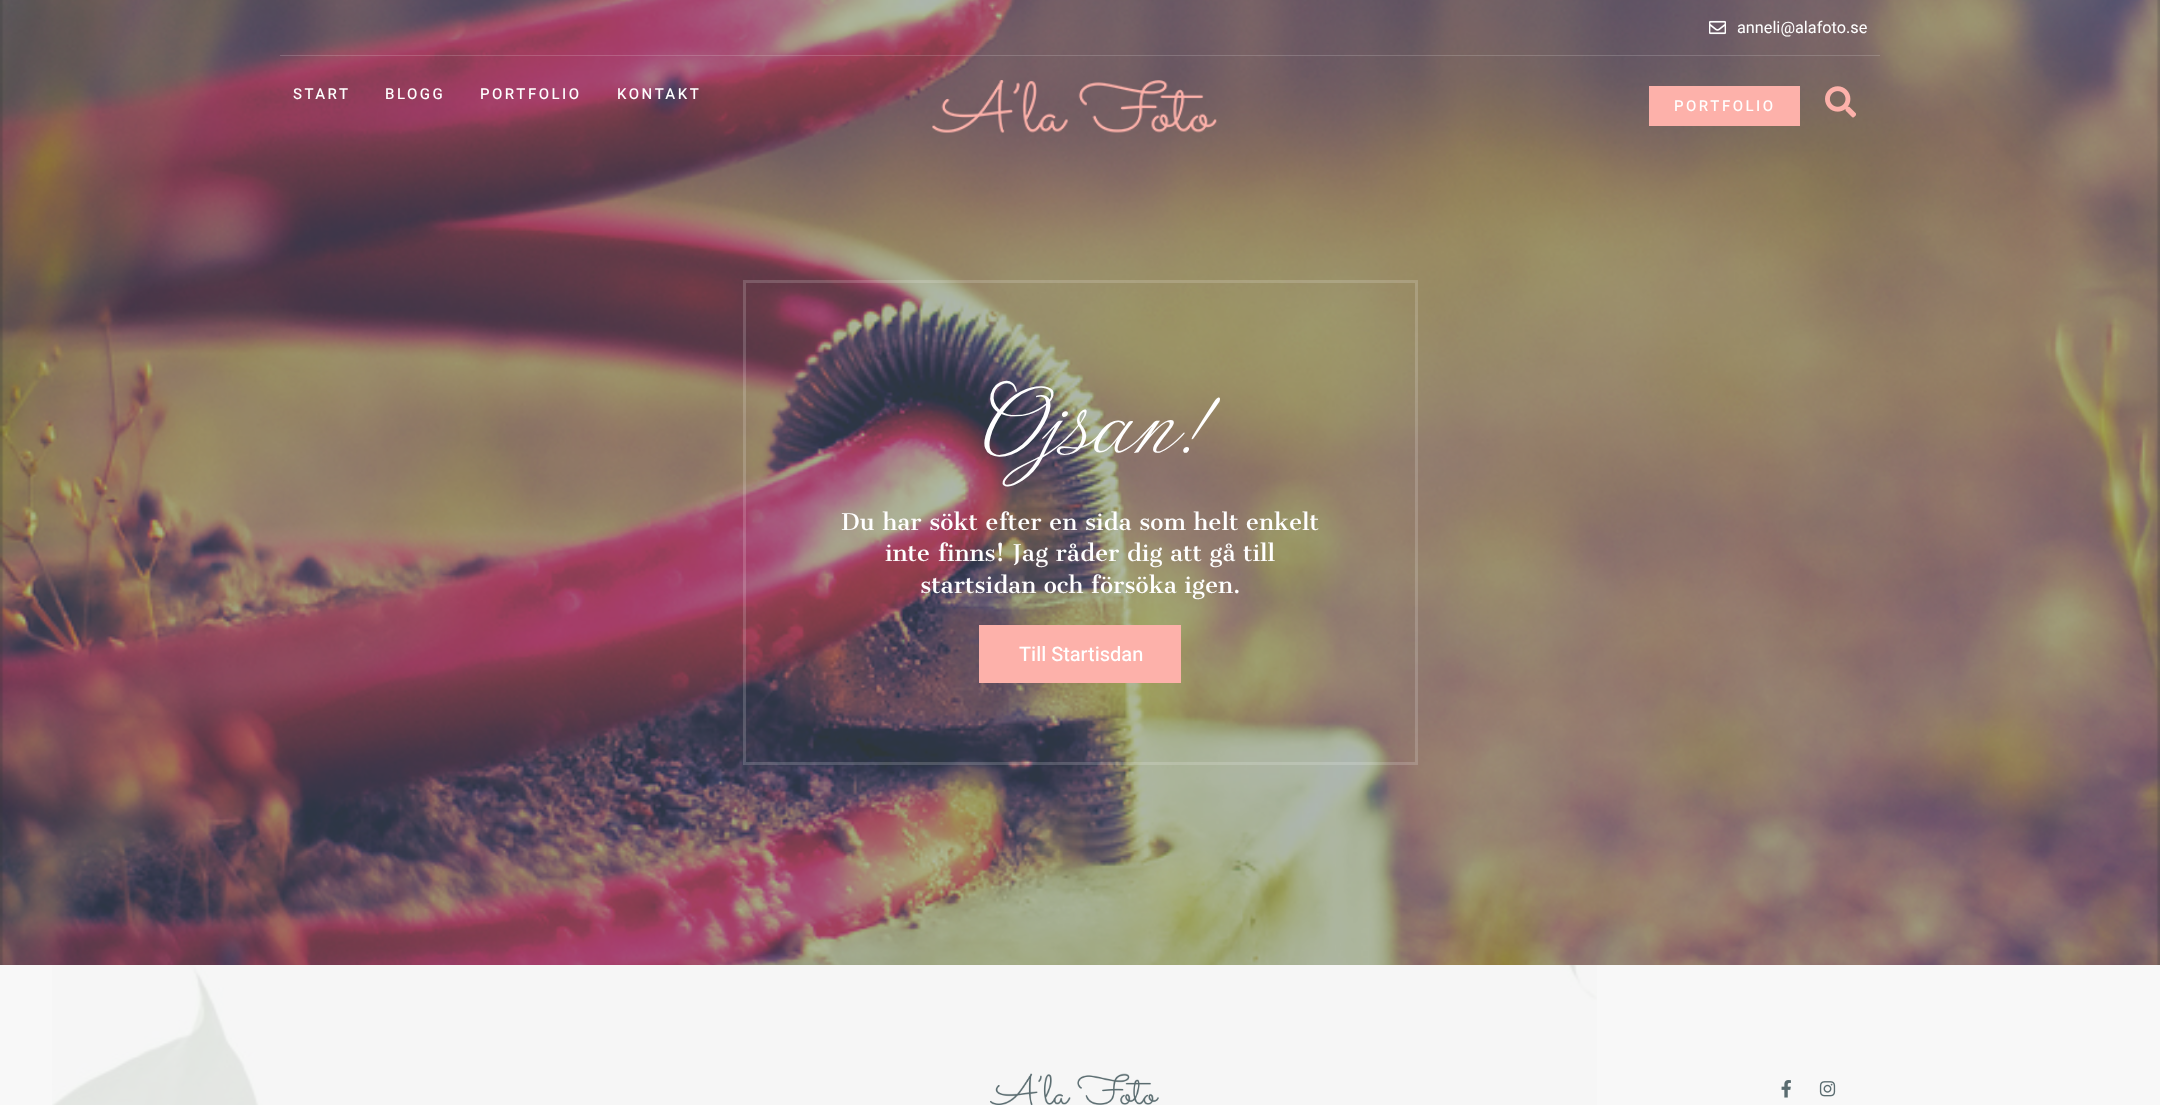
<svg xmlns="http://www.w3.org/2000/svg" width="2160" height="1105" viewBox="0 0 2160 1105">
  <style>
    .t1 { font: 16.25px Heebo; fill: #fff; }
    .t2 { font: 500 15px Heebo; letter-spacing: 2.5px; fill: #fff; }
    .t3 { font: italic 108px Gwendolyn; fill: #fff; }
    .t4 { font: 22.5px Cantata One; fill: #fff; }
    .t5 { font: 500 20px Heebo; fill: #fff; }
  </style>
  <rect width="100%" height="100%" fill="#5a6c70"/>
  <image x="0" y="0" width="2160" height="965" href="images/4.png"/>
  <rect x="280" y="55" width="1600" height="1" fill="#ffffff2b"/>
  <image x="1709" y="20" width="17" height="15" href="images/1.png"/>
  <text x="1737" y="33" class="t1">anneli@alafoto.se</text>
  <text x="293" y="99" class="t2">START</text>
  <text x="385" y="99" class="t2">BLOGG</text>
  <text x="480" y="99" class="t2">PORTFOLIO</text>
  <text x="617" y="99" class="t2">KONTAKT</text>
  <image x="932" y="80" width="285" height="53" href="images/2.png"/>
  <rect x="1649" y="86" width="151" height="40" fill="#fdb1aa"/>
  <text x="1674" y="111" class="t2">PORTFOLIO</text>
  <image x="1825" y="86" width="31" height="32" href="images/3.png"/>
  <rect x="744.5" y="281.5" width="672" height="482" fill="none" stroke="#ffffff2b" stroke-width="3"/>
  <text x="973" y="452" class="t3">Ojsan!</text>
  <text x="841" y="530" class="t4">Du har sökt efter en sida som helt enkelt</text>
  <text x="885" y="561" class="t4">inte finns! Jag råder dig att gå till</text>
  <text x="920" y="593" class="t4">startsidan och försöka igen.</text>
  <rect x="979" y="625" width="202" height="58" fill="#fdb1aa"/>
  <text x="1019" y="661" class="t5">Till Startisdan</text>
  <rect x="0" y="965" width="2160" height="140" fill="#f8f8f8"/>
  <image x="52" y="965" width="1545" height="140" href="images/5.png"/>
  <image x="990" y="1073" width="169" height="32" href="images/6.png"/>
  <image x="1781" y="1080" width="10" height="18" href="images/7.png"/>
  <image x="1819" y="1081" width="17" height="16" href="images/8.png"/>
</svg>
